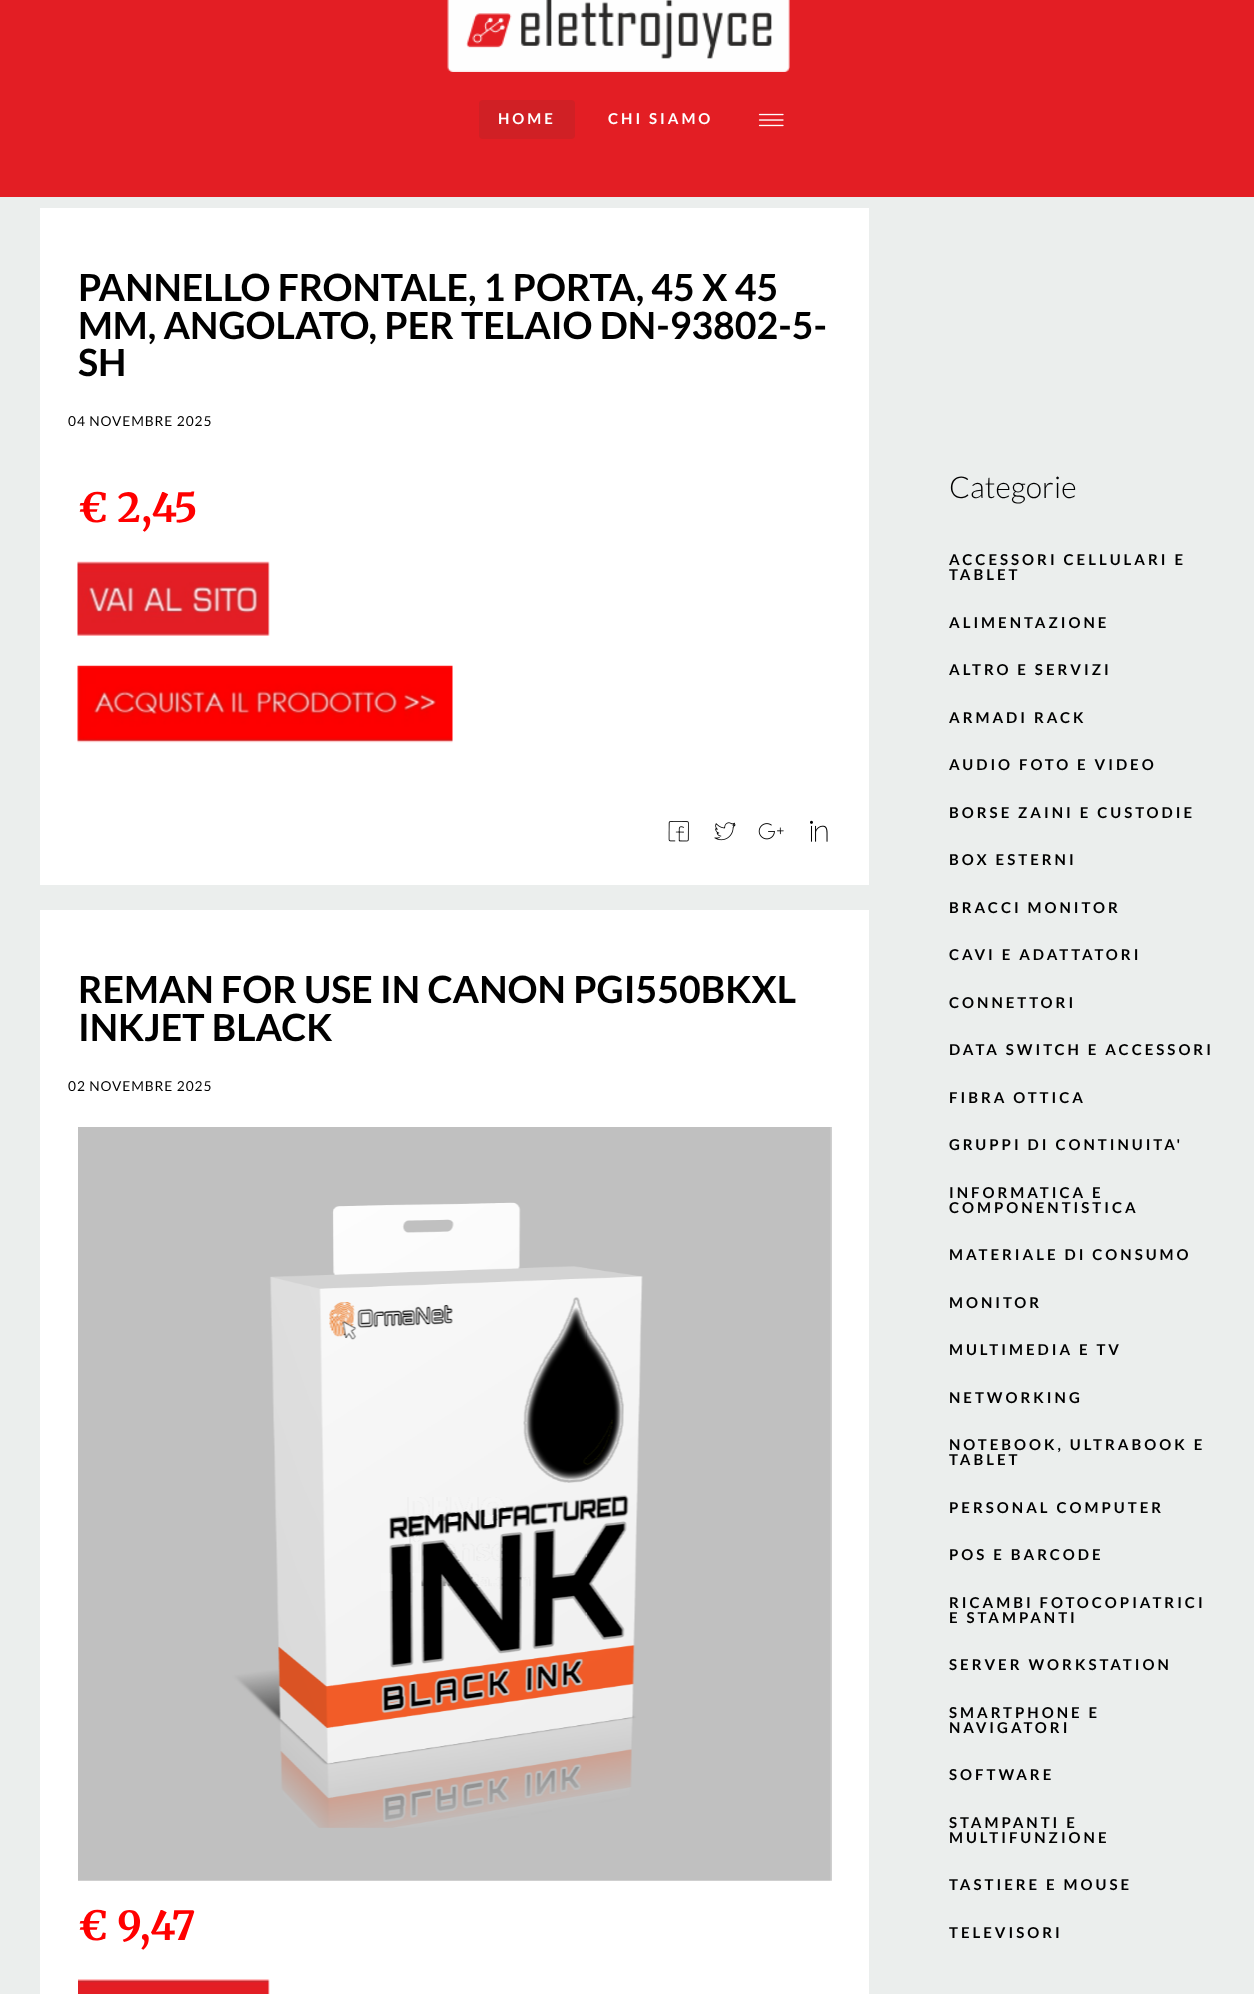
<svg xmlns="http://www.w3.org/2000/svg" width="1254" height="1994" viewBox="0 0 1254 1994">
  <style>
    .t1 { font: bold 15px Lato; letter-spacing: 3px; fill: #fff; }
    .t2 { font: bold 37.5px Lato; fill: #000; }
    .t3 { font: 13.75px Lato; letter-spacing: 0.9px; fill: #000; }
    .t4 { font: bold 40px Merriweather; fill: #f00; }
    .t5 { font: 300 30px Lato; fill: #000; }
    .t6 { font: bold 15px Lato; letter-spacing: 3px; fill: #000; }
  </style>
  <rect width="100%" height="100%" fill="#ebeeed"/>
  <rect x="0" y="0" width="1254" height="197" fill="#e31e24"/>
  <image x="447" y="0" width="343" height="72" href="images/1.png"/>
  <rect x="479" y="100" width="96" height="39" rx="4" fill="#d02025"/>
  <text x="498" y="124" class="t1">HOME</text>
  <text x="608" y="124" class="t1">CHI SIAMO</text>
  <image x="758" y="113" width="26" height="14" href="images/2.png"/>
  <rect x="40" y="208" width="829" height="677" fill="#fff"/>
  <text x="78" y="301" class="t2">PANNELLO FRONTALE, 1 PORTA, 45 X 45</text>
  <text x="78" y="339" class="t2">MM, ANGOLATO, PER TELAIO DN-93802-5-</text>
  <text x="78" y="376" class="t2">SH</text>
  <text x="68" y="426" class="t3">04 NOVEMBRE 2025</text>
  <text x="78" y="522" class="t4">€ 2,45</text>
  <image x="77" y="561" width="193" height="75" href="images/3.png"/>
  <image x="77" y="665" width="376" height="78" href="images/4.png"/>
  <image x="668" y="821" width="21" height="21" href="images/5.png"/>
  <image x="714" y="822" width="22" height="19" href="images/6.png"/>
  <image x="758" y="823" width="26" height="17" href="images/7.png"/>
  <image x="810" y="820" width="18" height="22" href="images/8.png"/>
  <rect x="40" y="910" width="829" height="1084" fill="#fff"/>
  <text x="78" y="1003" class="t2">REMAN FOR USE IN CANON PGI550BKXL</text>
  <text x="78" y="1041" class="t2">INKJET BLACK</text>
  <text x="68" y="1091" class="t3">02 NOVEMBRE 2025</text>
  <image x="78" y="1127" width="754" height="754" href="images/9.png"/>
  <text x="78" y="1940" class="t4">€ 9,47</text>
  <image x="78" y="1979" width="192" height="15" href="images/10.png"/>
  <text x="949" y="498" class="t5">Categorie</text>
  <text x="949" y="565" class="t6">ACCESSORI CELLULARI E</text>
  <text x="949" y="580" class="t6">TABLET</text>
  <text x="949" y="628" class="t6">ALIMENTAZIONE</text>
  <text x="949" y="675" class="t6">ALTRO E SERVIZI</text>
  <text x="949" y="723" class="t6">ARMADI RACK</text>
  <text x="949" y="770" class="t6">AUDIO FOTO E VIDEO</text>
  <text x="949" y="818" class="t6">BORSE ZAINI E CUSTODIE</text>
  <text x="949" y="865" class="t6">BOX ESTERNI</text>
  <text x="949" y="913" class="t6">BRACCI MONITOR</text>
  <text x="949" y="960" class="t6">CAVI E ADATTATORI</text>
  <text x="949" y="1008" class="t6">CONNETTORI</text>
  <text x="949" y="1055" class="t6">DATA SWITCH E ACCESSORI</text>
  <text x="949" y="1103" class="t6">FIBRA OTTICA</text>
  <text x="949" y="1150" class="t6">GRUPPI DI CONTINUITA'</text>
  <text x="949" y="1198" class="t6">INFORMATICA E</text>
  <text x="949" y="1213" class="t6">COMPONENTISTICA</text>
  <text x="949" y="1260" class="t6">MATERIALE DI CONSUMO</text>
  <text x="949" y="1308" class="t6">MONITOR</text>
  <text x="949" y="1355" class="t6">MULTIMEDIA E TV</text>
  <text x="949" y="1403" class="t6">NETWORKING</text>
  <text x="949" y="1450" class="t6">NOTEBOOK, ULTRABOOK E</text>
  <text x="949" y="1465" class="t6">TABLET</text>
  <text x="949" y="1513" class="t6">PERSONAL COMPUTER</text>
  <text x="949" y="1560" class="t6">POS E BARCODE</text>
  <text x="949" y="1608" class="t6">RICAMBI FOTOCOPIATRICI</text>
  <text x="949" y="1623" class="t6">E STAMPANTI</text>
  <text x="949" y="1670" class="t6">SERVER WORKSTATION</text>
  <text x="949" y="1718" class="t6">SMARTPHONE E</text>
  <text x="949" y="1733" class="t6">NAVIGATORI</text>
  <text x="949" y="1780" class="t6">SOFTWARE</text>
  <text x="949" y="1828" class="t6">STAMPANTI E</text>
  <text x="949" y="1843" class="t6">MULTIFUNZIONE</text>
  <text x="949" y="1890" class="t6">TASTIERE E MOUSE</text>
  <text x="949" y="1938" class="t6">TELEVISORI</text>
</svg>
